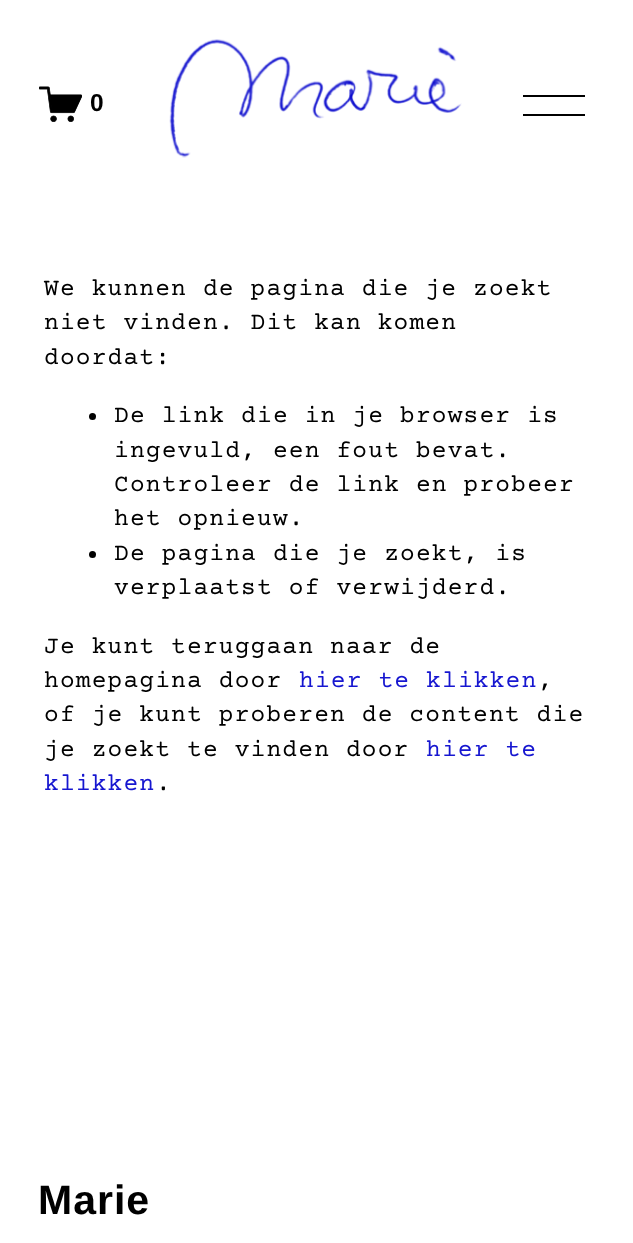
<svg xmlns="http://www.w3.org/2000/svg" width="633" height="1243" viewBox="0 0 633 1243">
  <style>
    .t1 { font: bold 24.5px Liberation Sans; letter-spacing: 1.2px; fill: #000; }
    .t2 { font: 24.5px Courier Prime; letter-spacing: 1.2px; fill: #000; }
    .t3 { font: 24.5px Courier Prime; letter-spacing: 1.2px; fill: #1616d0; }
    .t4 { font: bold 41px Liberation Sans; letter-spacing: 1px; fill: #000; }
  </style>
  <rect width="100%" height="100%" fill="#fff"/>
  <image x="39" y="86" width="43" height="36" href="images/1.png"/>
  <text x="90" y="111" class="t1">0</text>
  <image x="169" y="39" width="293" height="119" href="images/2.png"/>
  <rect x="523" y="95" width="62" height="2" fill="#000"/>
  <rect x="523" y="114" width="62" height="2" fill="#000"/>
  <text x="44" y="295" class="t2">We kunnen de pagina die je zoekt</text>
  <text x="44" y="329" class="t2">niet vinden. Dit kan komen</text>
  <text x="44" y="364" class="t2">doordat:</text>
  <circle cx="92.5" cy="416.5" r="3.5" fill="#000"/>
  <text x="114" y="422" class="t2">De link die in je browser is</text>
  <text x="114" y="457" class="t2">ingevuld, een fout bevat.</text>
  <text x="114" y="491" class="t2">Controleer de link en probeer</text>
  <text x="114" y="525" class="t2">het opnieuw.</text>
  <circle cx="92.5" cy="554.5" r="3.5" fill="#000"/>
  <text x="114" y="560" class="t2">De pagina die je zoekt, is</text>
  <text x="114" y="594" class="t2">verplaatst of verwijderd.</text>
  <text x="44" y="653" class="t2">Je kunt teruggaan naar de</text>
  <text x="44" y="687" class="t2">homepagina door</text>
  <text x="299" y="687" class="t3">hier te klikken</text>
  <text x="538" y="687" class="t2">,</text>
  <text x="44" y="721" class="t2">of je kunt proberen de content die</text>
  <text x="44" y="756" class="t2">je zoekt te vinden door</text>
  <text x="426" y="756" class="t3">hier te</text>
  <text x="44" y="790" class="t3">klikken</text>
  <text x="156" y="790" class="t2">.</text>
  <text x="38" y="1214" class="t4">Marie</text>
</svg>
